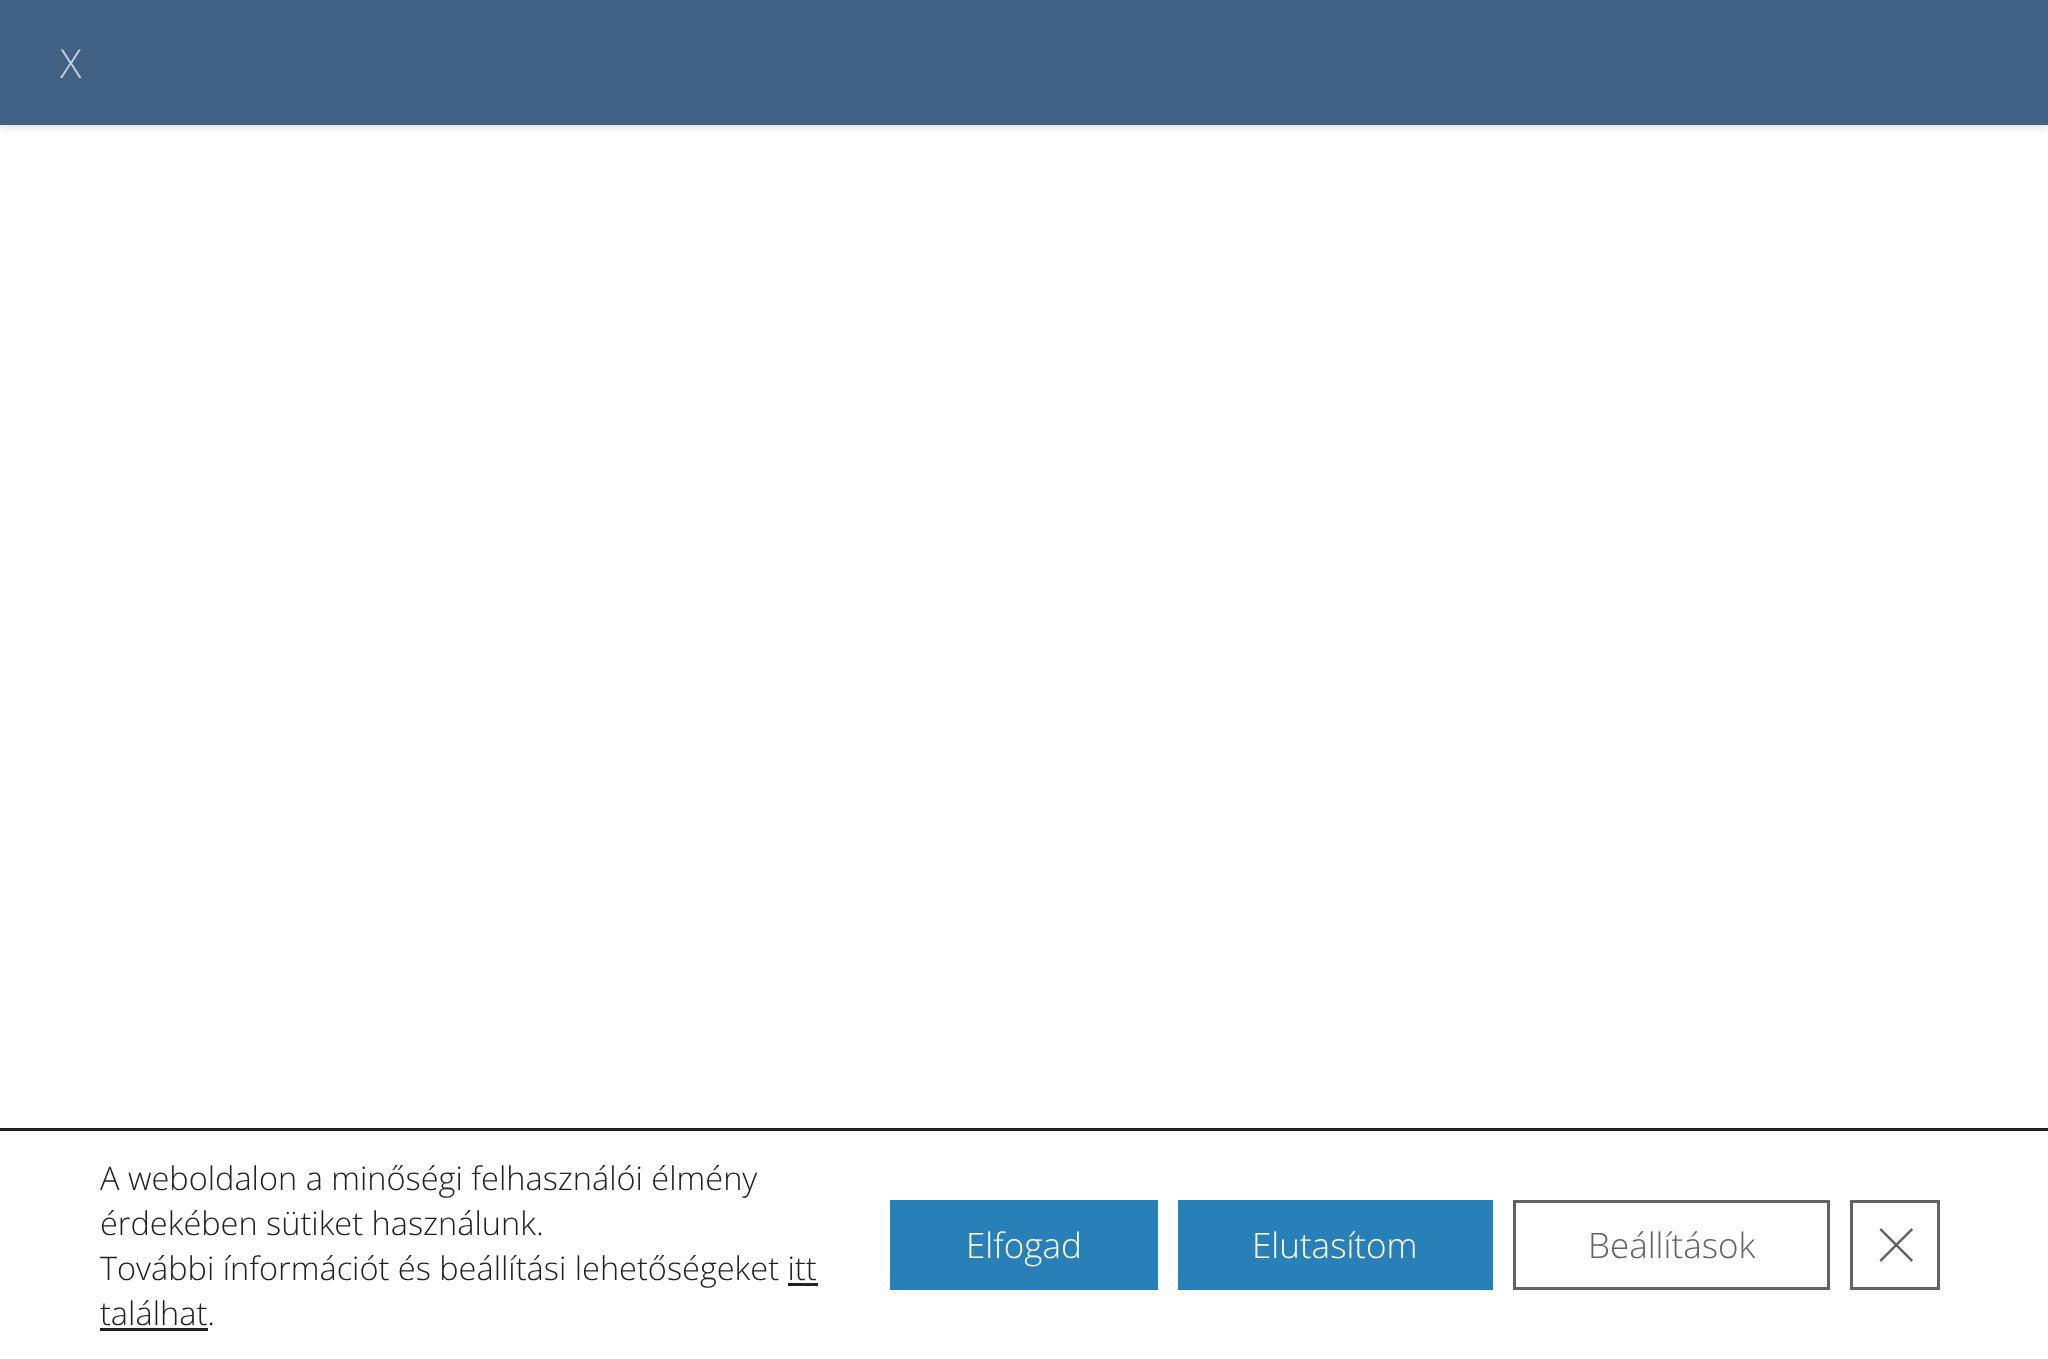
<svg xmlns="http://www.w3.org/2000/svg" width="2048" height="1359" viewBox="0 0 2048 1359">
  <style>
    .t1 { font: 300 40px Open Sans; fill: #c6d0da; }
    .t2 { font: 300 32.5px Open Sans; fill: #202020; }
    .t3 { font: 300 35px Open Sans; fill: #fff; }
    .t4 { font: 300 35px Open Sans; fill: #636363; }
  </style>
  <rect width="100%" height="100%" fill="#fff"/>
  <rect x="0" y="0" width="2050" height="125" fill="#00000033" filter="blur(6px)"/>
  <rect x="0" y="0" width="2048" height="125" fill="#416284"/>
  <text x="60" y="78" class="t1">X</text>
  <rect x="0" y="1128" width="2048" height="3" fill="#202020"/>
  <text x="100" y="1190" class="t2">A weboldalon a minőségi felhasználói élmény</text>
  <text x="100" y="1235" class="t2">érdekében sütiket használunk.</text>
  <text x="100" y="1280" class="t2">További ínformációt és beállítási lehetőségeket itt</text>
  <text x="100" y="1325" class="t2">találhat.</text>
  <rect x="788" y="1283" width="30" height="3" fill="#202020"/>
  <rect x="100" y="1328" width="108" height="3" fill="#202020"/>
  <rect x="890" y="1200" width="268" height="90" fill="#2980b9"/>
  <text x="966" y="1258" class="t3">Elfogad</text>
  <rect x="1178" y="1200" width="315" height="90" fill="#2980b9"/>
  <text x="1252" y="1258" class="t3">Elutasítom</text>
  <rect x="1514.5" y="1201.5" width="314" height="87" fill="none" stroke="#636363" stroke-width="3"/>
  <text x="1588" y="1258" class="t4">Beállítások</text>
  <rect x="1851.5" y="1201.5" width="87" height="87" fill="none" stroke="#626262" stroke-width="3"/>
  <path d="M1911.5 1228L1913 1230L1881 1262L1879.5 1260Z" fill="#626262"/>
  <path d="M1879.5 1230L1881 1228L1913 1260L1911.5 1262Z" fill="#626262"/>
</svg>
